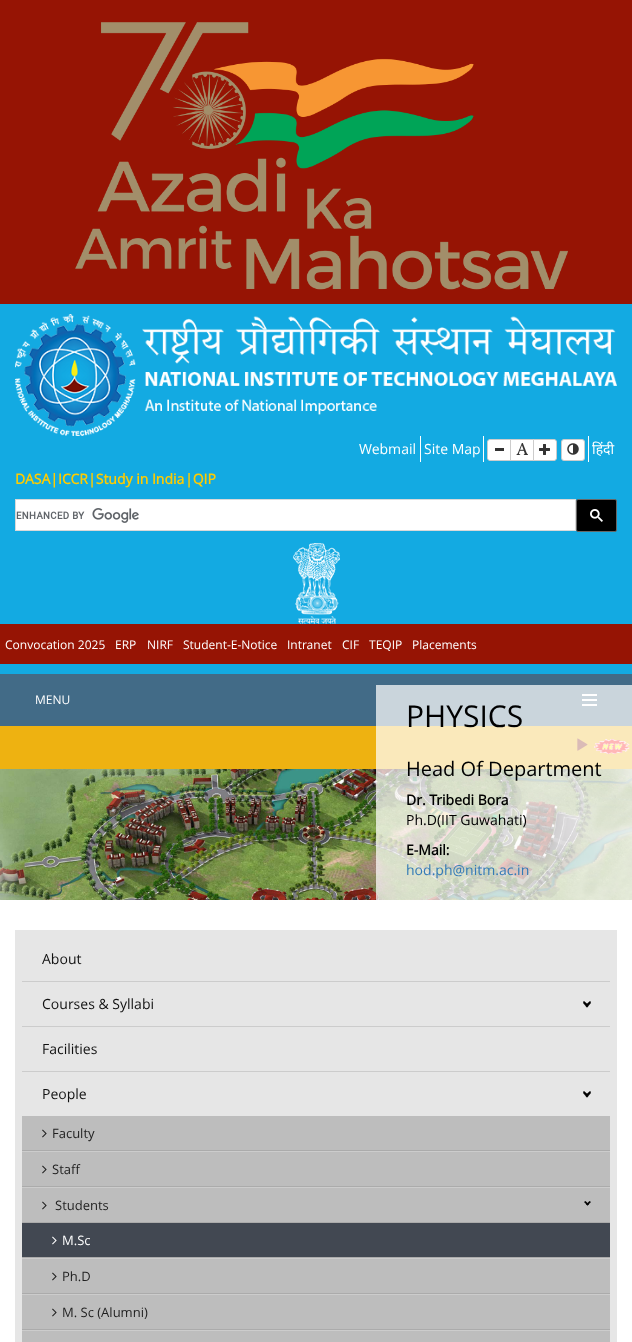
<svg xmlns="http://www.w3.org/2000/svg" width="632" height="1342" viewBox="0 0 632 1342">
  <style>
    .t1 { font: 14px Open Sans; fill: #fff; }
    .t2 { font: 14px Noto Sans; fill: #fff; }
    .t3 { font: bold 14px Open Sans; fill: #fc0; }
    .t4 { font: 12px Open Sans; fill: #fff; }
    .t5 { font: 12px 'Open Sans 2'; fill: #fff; }
    .t6 { font: 30px Open Sans; fill: #000; }
    .t7 { font: 20px Open Sans; fill: #000; }
    .t8 { font: bold 14px Open Sans; fill: #000; }
    .t9 { font: 14px Open Sans; fill: #000; }
    .t10 { font: 14px Open Sans; fill: #337ab7; }
    .t11 { font: 14px Open Sans; fill: #111; }
    .t12 { font: 13px Open Sans; fill: #1f1f1f; }
    .t13 { font: 13px Open Sans; fill: #fff; }
  </style>
  <rect width="100%" height="100%" fill="#fff"/>
  <rect x="0" y="304" width="632" height="370" fill="#13aae2"/>
  <rect x="0" y="0" width="632" height="304" fill="#961404"/>
  <image x="75" y="22" width="493" height="268" href="images/1.png"/>
  <image x="15" y="314" width="602" height="122" href="images/2.png"/>
  <text x="359" y="454" class="t1">Webmail</text>
  <rect x="420" y="436" width="1" height="26" fill="#fff"/>
  <text x="424" y="454" class="t1">Site Map</text>
  <rect x="483" y="436" width="1" height="26" fill="#fff"/>
  <path d="M490 439.5H510.5V460.5H490C488.5 460.5 487.5 459.5 487.5 458V442C487.5 440.5 488.5 439.5 490 439.5Z" fill="#fff" stroke="#ccc"/>
  <rect x="495" y="448" width="9" height="3" fill="#333"/>
  <rect x="510.5" y="439.5" width="23" height="21" fill="#fff" stroke="#ccc"/>
  <image x="516" y="443" width="12" height="12" href="images/3.png"/>
  <path d="M533.5 439.5H554C555.5 439.5 556.5 440.5 556.5 442V458C556.5 459.5 555.5 460.5 554 460.5H533.5Z" fill="#fff" stroke="#ccc"/>
  <image x="539" y="444" width="11" height="11" href="images/4.png"/>
  <rect x="561.5" y="439.5" width="23" height="21" rx="2.5" fill="#fff" stroke="#ccc"/>
  <image x="567" y="443" width="12" height="12" href="images/5.png"/>
  <rect x="588" y="436" width="1" height="26" fill="#fff"/>
  <text x="592" y="454" class="t2">हिंदी</text>
  <text x="15" y="484" class="t3">DASA|ICCR|Study in India</text>
  <text x="185" y="484" class="t3">|QIP</text>
  <rect x="15.5" y="499.5" width="560" height="31" fill="#fff" stroke="#d9d9d9"/>
  <image x="16" y="508" width="123" height="15" href="images/6.png"/>
  <rect x="576.5" y="499.5" width="40" height="32" rx="1.5" fill="#000" stroke="#666"/>
  <image x="590" y="509" width="13" height="13" href="images/7.png"/>
  <image x="293" y="543" width="47" height="81" href="images/8.png"/>
  <rect x="0" y="624" width="632" height="40" fill="#961404"/>
  <text x="5" y="649" class="t4">Convocation 2025</text>
  <text x="115" y="649" class="t4">ERP</text>
  <text x="147" y="649" class="t4">NIRF</text>
  <text x="183" y="649" class="t4">Student-E-Notice</text>
  <text x="287" y="649" class="t4">Intranet</text>
  <text x="342" y="649" class="t4">CIF</text>
  <text x="369" y="649" class="t4">TEQIP</text>
  <text x="412" y="649" class="t4">Placements</text>
  <rect x="0" y="674" width="632" height="52" fill="#426b87"/>
  <text x="35" y="704" class="t5">MENU</text>
  <image x="0" y="769" width="632" height="131" href="images/9.png"/>
  <rect x="0" y="726" width="632" height="43" fill="#eeb211"/>
  <image x="577" y="738" width="11" height="13" href="images/10.png"/>
  <image x="594" y="739" width="36" height="15" href="images/11.png"/>
  <rect x="376" y="685" width="256" height="215" fill="#fffdfdb8"/>
  <rect x="582" y="694" width="15" height="2" fill="#fff"/>
  <rect x="582" y="699" width="15" height="2" fill="#fff"/>
  <rect x="582" y="704" width="15" height="2" fill="#fff"/>
  <text x="406" y="727" class="t6">PHYSICS</text>
  <text x="406" y="776" class="t7">Head Of Department</text>
  <text x="406" y="805" class="t8">Dr. Tribedi Bora</text>
  <text x="406" y="825" class="t9">Ph.D(IIT Guwahati)</text>
  <text x="406" y="855" class="t8">E-Mail:</text>
  <text x="406" y="875" class="t10">hod.ph@nitm.ac.in</text>
  <rect x="15" y="930" width="602" height="412" fill="#e6e6e6"/>
  <rect x="22" y="981" width="588" height="1" fill="#ccc"/>
  <text x="42" y="964" class="t11">About</text>
  <rect x="22" y="1026" width="588" height="1" fill="#ccc"/>
  <text x="42" y="1009" class="t11">Courses &amp; Syllabi</text>
  <path d="M587 1007.5L583 1003L584 1002L588.5 1006Z" fill="#111"/>
  <path d="M587 1007.5L585.5 1006L590 1002L591 1003Z" fill="#111"/>
  <path d="M587 1006.5L583 1002L584 1001L588.5 1005Z" fill="#000"/>
  <path d="M587 1006.5L585.5 1005L590 1001L591 1002Z" fill="#000"/>
  <rect x="22" y="1071" width="588" height="1" fill="#ccc"/>
  <text x="42" y="1054" class="t11">Facilities</text>
  <text x="42" y="1099" class="t11">People</text>
  <path d="M587 1097.5L583 1093L584 1092L588.5 1096Z" fill="#111"/>
  <path d="M587 1097.5L585.5 1096L590 1092L591 1093Z" fill="#111"/>
  <path d="M587 1096.5L583 1092L584 1091L588.5 1095Z" fill="#000"/>
  <path d="M587 1096.5L585.5 1095L590 1091L591 1092Z" fill="#000"/>
  <rect x="22" y="1151" width="588" height="1" fill="#ccc"/>
  <rect x="22" y="1116" width="588" height="34" fill="#bdbdbd"/>
  <rect x="22" y="1150" width="588" height="1" fill="#ababab"/>
  <image x="42" y="1129" width="5" height="9" href="images/12.png"/>
  <text x="52" y="1138" class="t12">Faculty</text>
  <rect x="22" y="1187" width="588" height="1" fill="#ccc"/>
  <rect x="22" y="1152" width="588" height="34" fill="#bdbdbd"/>
  <rect x="22" y="1186" width="588" height="1" fill="#ababab"/>
  <image x="42" y="1165" width="5" height="9" href="images/12.png"/>
  <text x="52" y="1174" class="t12">Staff</text>
  <rect x="22" y="1188" width="588" height="34" fill="#bdbdbd"/>
  <rect x="22" y="1222" width="588" height="1" fill="#ababab"/>
  <image x="42" y="1201" width="5" height="9" href="images/12.png"/>
  <text x="55" y="1210" class="t12">Students</text>
  <path d="M587.5 1205.5L584 1202L585.5 1201L589 1204.5Z" fill="#030303"/>
  <path d="M587.5 1205.5L586 1204.5L589.5 1201L591 1202Z" fill="#030303"/>
  <rect x="22" y="1258" width="588" height="1" fill="#ccc"/>
  <rect x="22" y="1223" width="588" height="34" fill="#424852"/>
  <rect x="22" y="1257" width="588" height="1" fill="#ababab"/>
  <image x="52" y="1236" width="5" height="9" href="images/13.png"/>
  <text x="62" y="1245" class="t13">M.Sc</text>
  <rect x="22" y="1294" width="588" height="1" fill="#ccc"/>
  <rect x="22" y="1259" width="588" height="34" fill="#bdbdbd"/>
  <rect x="22" y="1293" width="588" height="1" fill="#ababab"/>
  <image x="52" y="1272" width="5" height="9" href="images/12.png"/>
  <text x="62" y="1281" class="t12">Ph.D</text>
  <rect x="22" y="1330" width="588" height="1" fill="#ccc"/>
  <rect x="22" y="1295" width="588" height="34" fill="#bdbdbd"/>
  <rect x="22" y="1329" width="588" height="1" fill="#ababab"/>
  <image x="52" y="1308" width="5" height="9" href="images/12.png"/>
  <text x="62" y="1317" class="t12">M. Sc (Alumni)</text>
  <rect x="22" y="1331" width="588" height="11" fill="#bdbdbd"/>
</svg>
